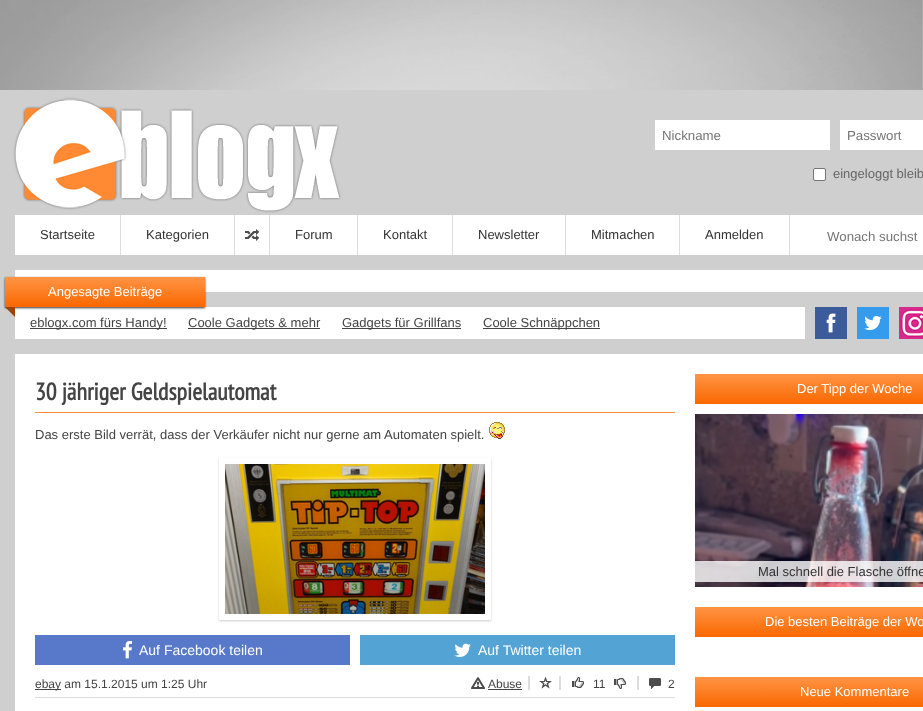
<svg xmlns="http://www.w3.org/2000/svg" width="923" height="711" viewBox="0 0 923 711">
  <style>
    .t1 { font: 13.25px Liberation Sans; fill: #757575; }
    .t2 { font: 13px Liberation Sans; fill: #666; }
    .t3 { font: 13px Liberation Sans; fill: #333; }
    .t4 { font: 13px Liberation Sans; fill: #fff; }
    .t5 { font: 13px Liberation Sans; fill: #444; }
    .t6 { font: bold 24px PT Sans Narrow; fill: #444; }
    .t7 { font: 14px Liberation Sans; fill: #fff; }
    .t8 { font: 12px Liberation Sans; fill: #444; }
  </style>
  <defs>
    <linearGradient id="g1" gradientUnits="userSpaceOnUse" x1="105" y1="277" x2="105" y2="307"><stop offset="0" stop-color="#ff9445"/><stop offset="1" stop-color="#fa6800"/></linearGradient>
    <clipPath id="clip1"><path d="M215 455H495V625H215ZM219 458H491V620H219Z" clip-rule="evenodd"/></clipPath>
    <linearGradient id="g2" gradientUnits="userSpaceOnUse" x1="855" y1="374" x2="855" y2="404"><stop offset="0" stop-color="#ff9445"/><stop offset="1" stop-color="#fa6800"/></linearGradient>
    <linearGradient id="g3" gradientUnits="userSpaceOnUse" x1="855" y1="607" x2="855" y2="637"><stop offset="0" stop-color="#ff9445"/><stop offset="1" stop-color="#fa6800"/></linearGradient>
    <linearGradient id="g4" gradientUnits="userSpaceOnUse" x1="855" y1="677" x2="855" y2="707"><stop offset="0" stop-color="#ff9445"/><stop offset="1" stop-color="#fa6800"/></linearGradient>
  </defs>
  <rect width="100%" height="100%" fill="#fff"/>
  <image x="0" y="0" width="923" height="90" href="images/1.png"/>
  <rect x="0" y="90" width="923" height="621" fill="#cfcfcf"/>
  <image x="13" y="97" width="328" height="116" href="images/2.png"/>
  <rect x="655" y="120" width="175" height="30" fill="#fff"/>
  <text x="662" y="140" class="t1">Nickname</text>
  <rect x="840" y="120" width="83" height="30" fill="#fff"/>
  <text x="847" y="140" class="t1">Passwort</text>
  <rect x="813.5" y="168.5" width="12" height="12" rx="1.5" fill="#fff" stroke="#767676"/>
  <text x="833" y="178" class="t2">eingeloggt bleib</text>
  <rect x="15" y="215" width="908" height="40" fill="#fff"/>
  <rect x="120" y="215" width="1" height="40" fill="#ddd"/>
  <text x="40" y="239" class="t3">Startseite</text>
  <rect x="234" y="215" width="1" height="40" fill="#ddd"/>
  <text x="146" y="239" class="t3">Kategorien</text>
  <rect x="269" y="215" width="1" height="40" fill="#ddd"/>
  <image x="245" y="229" width="14" height="12" href="images/3.png"/>
  <rect x="357" y="215" width="1" height="40" fill="#ddd"/>
  <text x="295" y="239" class="t3">Forum</text>
  <rect x="452" y="215" width="1" height="40" fill="#ddd"/>
  <text x="383" y="239" class="t3">Kontakt</text>
  <rect x="565" y="215" width="1" height="40" fill="#ddd"/>
  <text x="478" y="239" class="t3">Newsletter</text>
  <rect x="679" y="215" width="1" height="40" fill="#ddd"/>
  <text x="591" y="239" class="t3">Mitmachen</text>
  <rect x="789" y="215" width="1" height="40" fill="#ddd"/>
  <text x="705" y="239" class="t3">Anmelden</text>
  <text x="827" y="241" class="t1">Wonach suchst</text>
  <rect x="15" y="270" width="908" height="22" fill="#fff"/>
  <rect x="15" y="307" width="790" height="32" fill="#fff"/>
  <rect x="5" y="278" width="200" height="30" fill="#333" filter="blur(1px)"/>
  <rect x="5" y="277" width="200" height="30" fill="url(#g1)"/>
  <text x="48" y="296" class="t4">Angesagte Beiträge</text>
  <path d="M5 307H15V317Z" fill="#9e4201"/>
  <rect x="30" y="328" width="137" height="1" fill="#444"/>
  <text x="30" y="327" class="t5">eblogx.com fürs Handy!</text>
  <rect x="188" y="328" width="132" height="1" fill="#444"/>
  <text x="188" y="327" class="t5">Coole Gadgets &amp; mehr</text>
  <rect x="342" y="328" width="119" height="1" fill="#444"/>
  <text x="342" y="327" class="t5">Gadgets für Grillfans</text>
  <rect x="483" y="328" width="117" height="1" fill="#444"/>
  <text x="483" y="327" class="t5">Coole Schnäppchen</text>
  <image x="815" y="307" width="32" height="32" href="images/4.png"/>
  <image x="857" y="307" width="32" height="32" href="images/5.png"/>
  <image x="899" y="307" width="24" height="32" href="images/6.png"/>
  <rect x="15" y="354" width="908" height="357" fill="#fff"/>
  <rect x="35" y="412" width="640" height="1" fill="#fe8c38"/>
  <text x="35" y="400" class="t6">30 jähriger Geldspielautomat</text>
  <text x="35" y="439" class="t5">Das erste Bild verrät, dass der Verkäufer nicht nur gerne am Automaten spielt.</text>
  <image x="489" y="422" width="16" height="17" href="images/7.png"/>
  <g clip-path="url(#clip1)">
    <rect x="219" y="459" width="272" height="162" fill="#ccc" filter="blur(1px)"/>
  </g>
  <image x="225" y="464" width="260" height="150" href="images/8.png"/>
  <rect x="35" y="635" width="315" height="30" fill="#5879c9"/>
  <image x="123" y="641" width="9" height="18" href="images/9.png"/>
  <text x="139" y="655" class="t7">Auf Facebook teilen</text>
  <rect x="360" y="635" width="315" height="30" fill="#53a4d5"/>
  <image x="454" y="643" width="17" height="14" href="images/10.png"/>
  <text x="478" y="655" class="t7">Auf Twitter teilen</text>
  <rect x="35" y="697" width="640" height="1" fill="#ddd"/>
  <rect x="35" y="689" width="26" height="1" fill="#444"/>
  <text x="35" y="688" class="t8">ebay am 15.1.2015 um 1:25 Uhr</text>
  <image x="471" y="677" width="14" height="12" href="images/11.png"/>
  <text x="488" y="688" class="t8">Abuse</text>
  <rect x="488" y="689" width="34" height="1" fill="#444"/>
  <rect x="528" y="676" width="2" height="14" fill="#ddd"/>
  <image x="539" y="677" width="13" height="12" href="images/12.png"/>
  <rect x="559" y="676" width="2" height="14" fill="#ddd"/>
  <image x="572" y="677" width="12" height="11" href="images/13.png"/>
  <text x="593" y="688" class="t8">11</text>
  <image x="614" y="678" width="12" height="11" href="images/14.png"/>
  <rect x="637" y="676" width="2" height="14" fill="#ddd"/>
  <image x="649" y="678" width="12" height="11" href="images/15.png"/>
  <text x="668" y="688" class="t8">2</text>
  <rect x="695" y="374" width="228" height="30" fill="url(#g2)"/>
  <text x="797" y="393" class="t4">Der Tipp der Woche</text>
  <image x="695" y="414" width="228" height="173" href="images/16.png"/>
  <rect x="695" y="561" width="228" height="21" fill="#ffffffcc"/>
  <text x="758" y="576" class="t3">Mal schnell die Flasche öffne</text>
  <rect x="695" y="607" width="228" height="30" fill="url(#g3)"/>
  <text x="765" y="626" class="t4">Die besten Beiträge der Wo</text>
  <rect x="695" y="677" width="228" height="30" fill="url(#g4)"/>
  <text x="800" y="696" class="t4">Neue Kommentare</text>
</svg>
